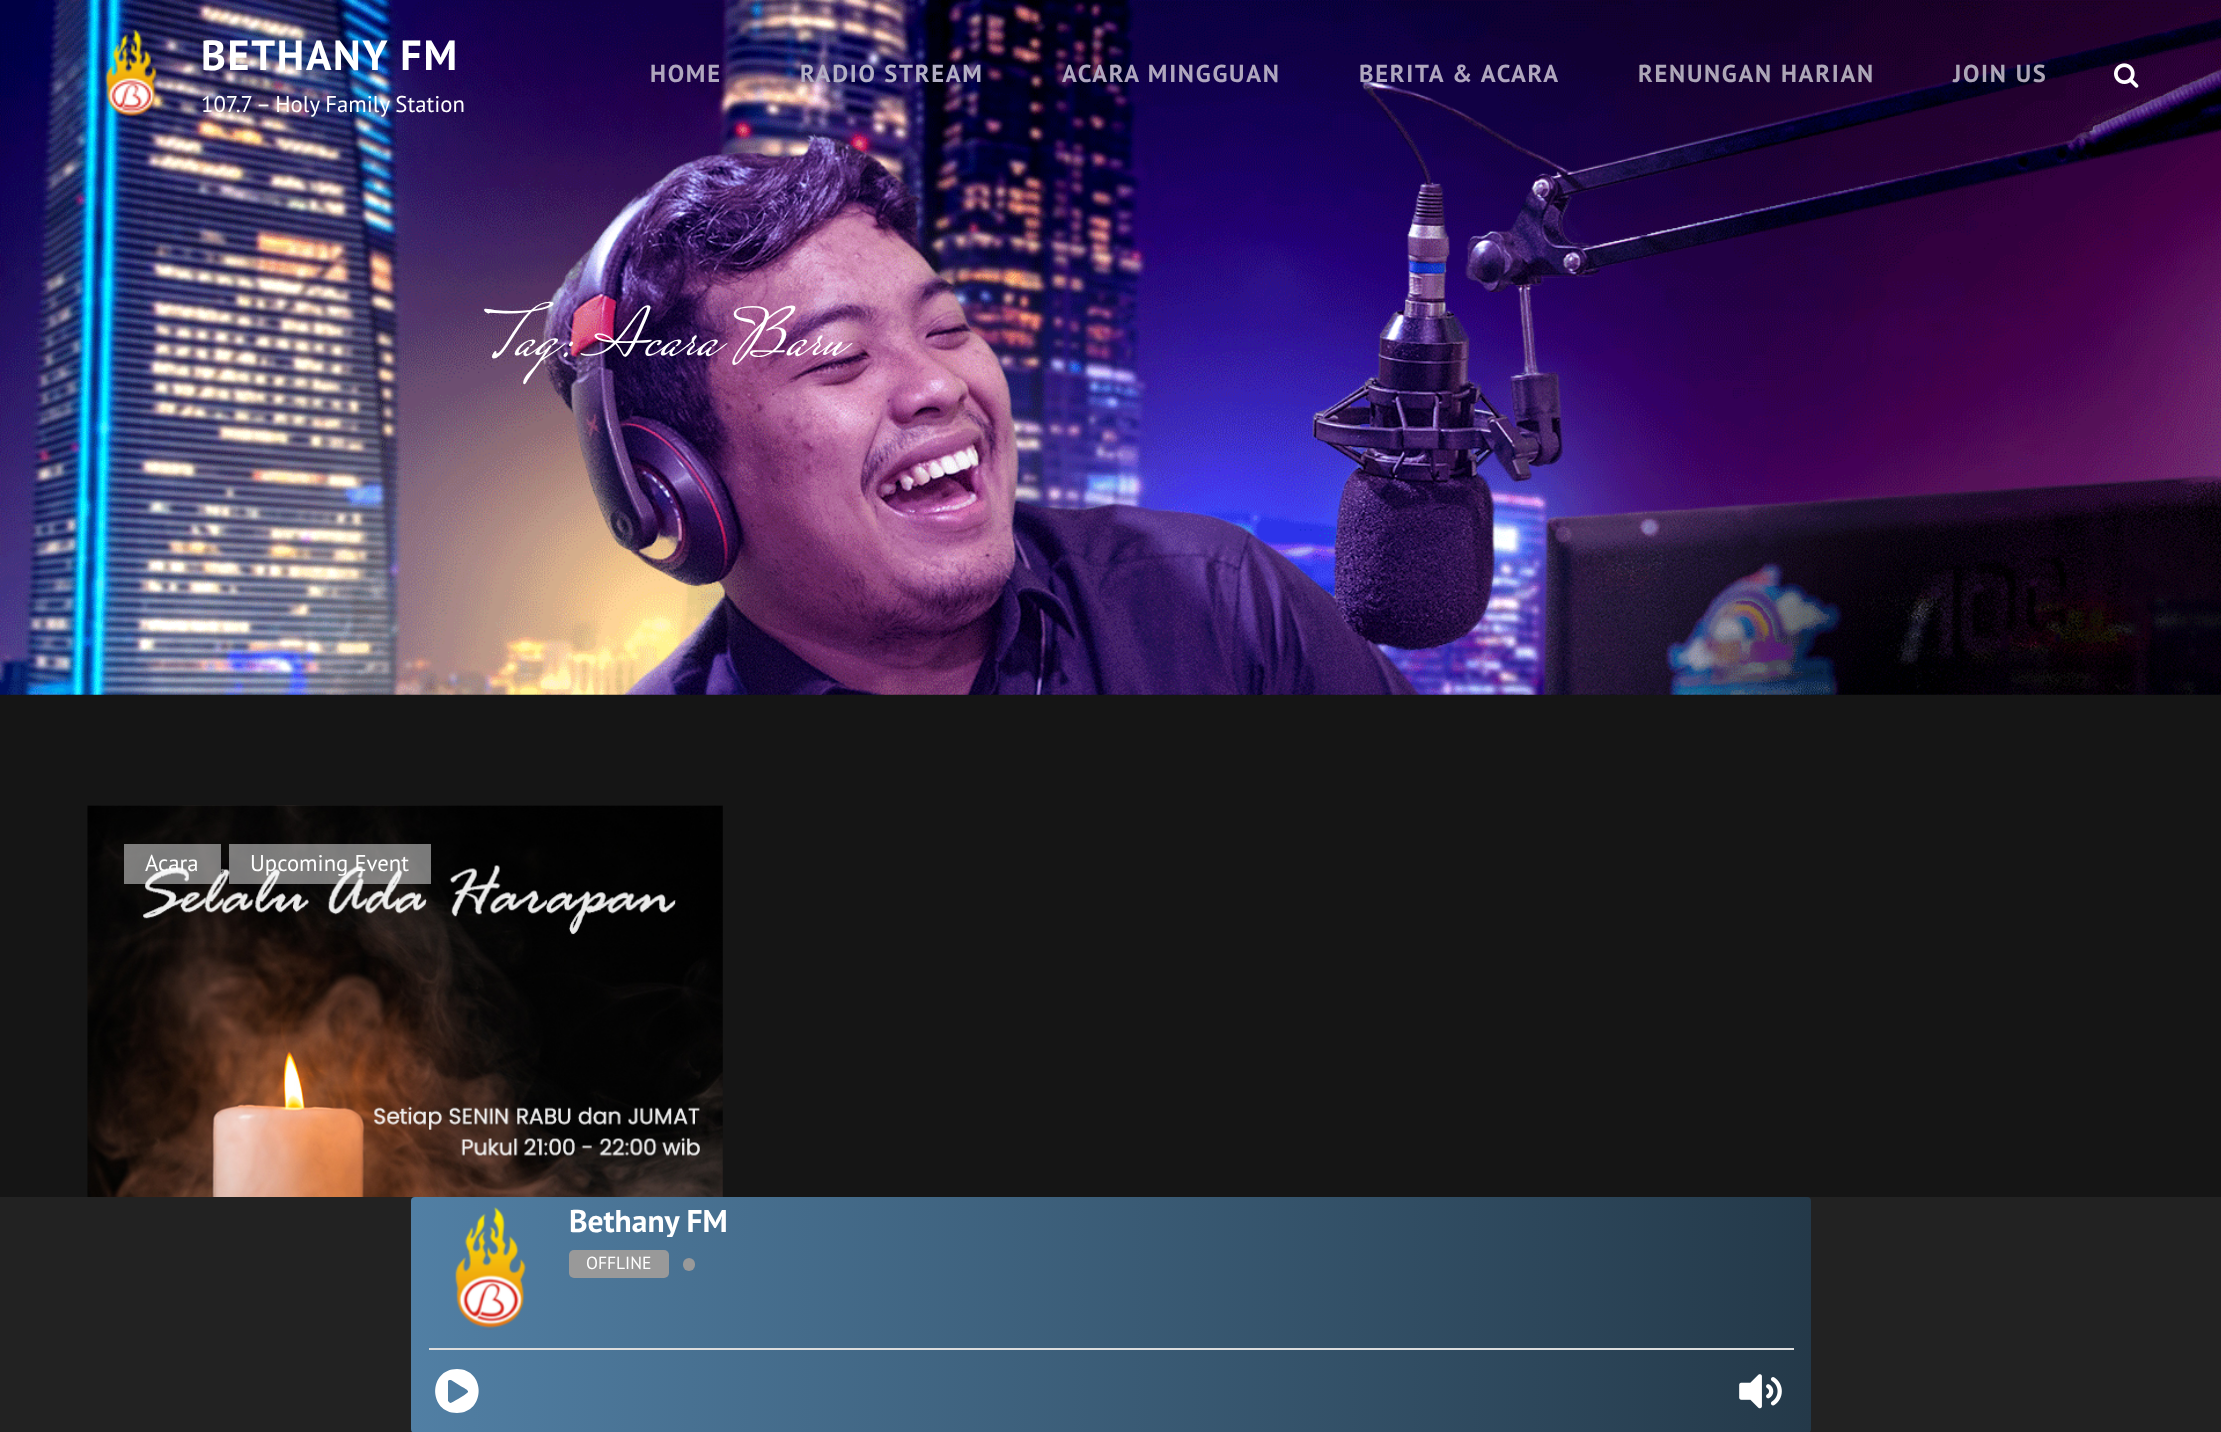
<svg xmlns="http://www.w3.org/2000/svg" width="2221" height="1432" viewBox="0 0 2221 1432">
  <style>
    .t1 { font: bold 42px PT Sans; letter-spacing: 1.75px; fill: #fff; }
    .t2 { font: 22.75px PT Sans; fill: #fff; }
    .t3 { font: bold 24.5px PT Sans; letter-spacing: 1.75px; fill: #afa6be; }
    .t4 { font: bold 24.5px PT Sans; letter-spacing: 1.75px; fill: #b3afc4; }
    .t5 { font: bold 24.5px PT Sans; letter-spacing: 1.75px; fill: #ada6b7; }
    .t6 { font: 70px Mrs Saint Delafield; fill: #fff; }
    .t7 { font: 22.75px PT Sans; fill: #7b7b7b; }
    .t8 { font: bold 31.5px PT Sans; fill: #fff; }
    .t9 { font: 17.5px PT Sans; fill: #fff; }
  </style>
  <defs>
    <linearGradient id="g1" gradientUnits="userSpaceOnUse" x1="1811" y1="1315" x2="411" y2="1315"><stop offset="0" stop-color="#243949"/><stop offset="1" stop-color="#517fa4"/></linearGradient>
    <clipPath id="clip1"><rect x="569" y="1206" width="159" height="31"/></clipPath>
  </defs>
  <rect width="100%" height="100%" fill="#151515"/>
  <image x="0" y="0" width="2221" height="695" href="images/3.png"/>
  <image x="104" y="29" width="56" height="88" href="images/1.png"/>
  <text x="201" y="70" class="t1">BETHANY FM</text>
  <text x="201" y="112" class="t2">107.7 – Holy Family Station</text>
  <text x="650" y="82" class="t3">HOME</text>
  <text x="800" y="82" class="t4">RADIO STREAM</text>
  <text x="1062" y="82" class="t3">ACARA MINGGUAN</text>
  <text x="1359" y="82" class="t3">BERITA &amp; ACARA</text>
  <text x="1638" y="82" class="t5">RENUNGAN HARIAN</text>
  <text x="1953" y="82" class="t5">JOIN US</text>
  <image x="2114" y="63" width="25" height="25" href="images/2.png"/>
  <text x="487" y="355" class="t6">Tag: Acara Baru</text>
  <image x="87" y="805" width="636" height="392" href="images/4.png"/>
  <rect x="124" y="844" width="97" height="40" fill="#ffffff78"/>
  <text x="145" y="871" class="t2">Acara</text>
  <text x="220" y="871" class="t7">,</text>
  <rect x="229" y="844" width="202" height="40" fill="#ffffff78"/>
  <text x="250" y="871" class="t2">Upcoming Event</text>
  <rect x="0" y="1197" width="2221" height="235" fill="#222"/>
  <rect x="411" y="1197" width="1400" height="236" rx="4" fill="url(#g1)"/>
  <image x="455" y="1207" width="71" height="123" href="images/5.png"/>
  <g clip-path="url(#clip1)">
    <text x="569" y="1232" class="t8">Bethany FM</text>
  </g>
  <rect x="569" y="1250" width="100" height="28" rx="5" fill="#999"/>
  <text x="586" y="1269" class="t9">OFFLINE</text>
  <rect x="683" y="1258" width="12" height="13" rx="6" fill="#999"/>
  <rect x="429" y="1348" width="1365" height="2" fill="#ddd"/>
  <path d="M457 1369C428 1369 428 1413 457 1413C486 1413 486 1369 457 1369ZM467 1393C465 1395 452 1403 450 1403L448 1401V1381L449 1380H451L459 1385C460 1386 472 1391 467 1393Z" fill="#fff"/>
  <image x="1739" y="1374" width="43" height="35" href="images/6.png"/>
</svg>
